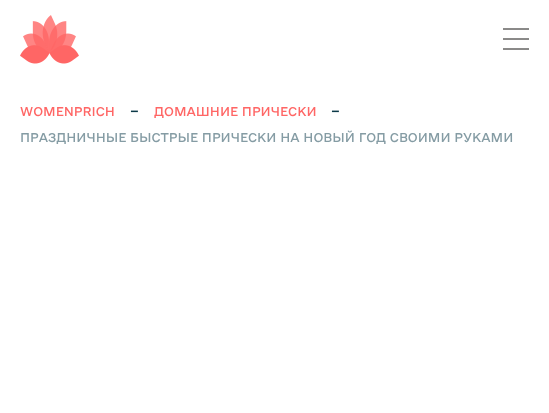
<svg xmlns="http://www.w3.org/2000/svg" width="549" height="413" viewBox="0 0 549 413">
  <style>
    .t1 { font: 12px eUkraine; fill: #ff6665; }
    .t2 { font: 14px eUkraine; fill: #0b3948; }
    .t3 { font: 12px eUkraine; fill: #859ca4; }
  </style>
  <rect width="100%" height="100%" fill="#fff"/>
  <image x="20" y="15" width="59" height="49" href="images/1.png"/>
  <path d="M529 29H503M529 39H503M529 49H503" fill="none" stroke="#171412"/>
  <text x="20" y="116" class="t1">WOMENPRICH</text>
  <text x="130" y="116" class="t2">–</text>
  <text x="154" y="116" class="t1">ДОМАШНИЕ ПРИЧЕСКИ</text>
  <text x="331" y="116" class="t2">–</text>
  <text x="20" y="142" class="t3">ПРАЗДНИЧНЫЕ БЫСТРЫЕ ПРИЧЕСКИ НА НОВЫЙ ГОД СВОИМИ РУКАМИ</text>
</svg>
